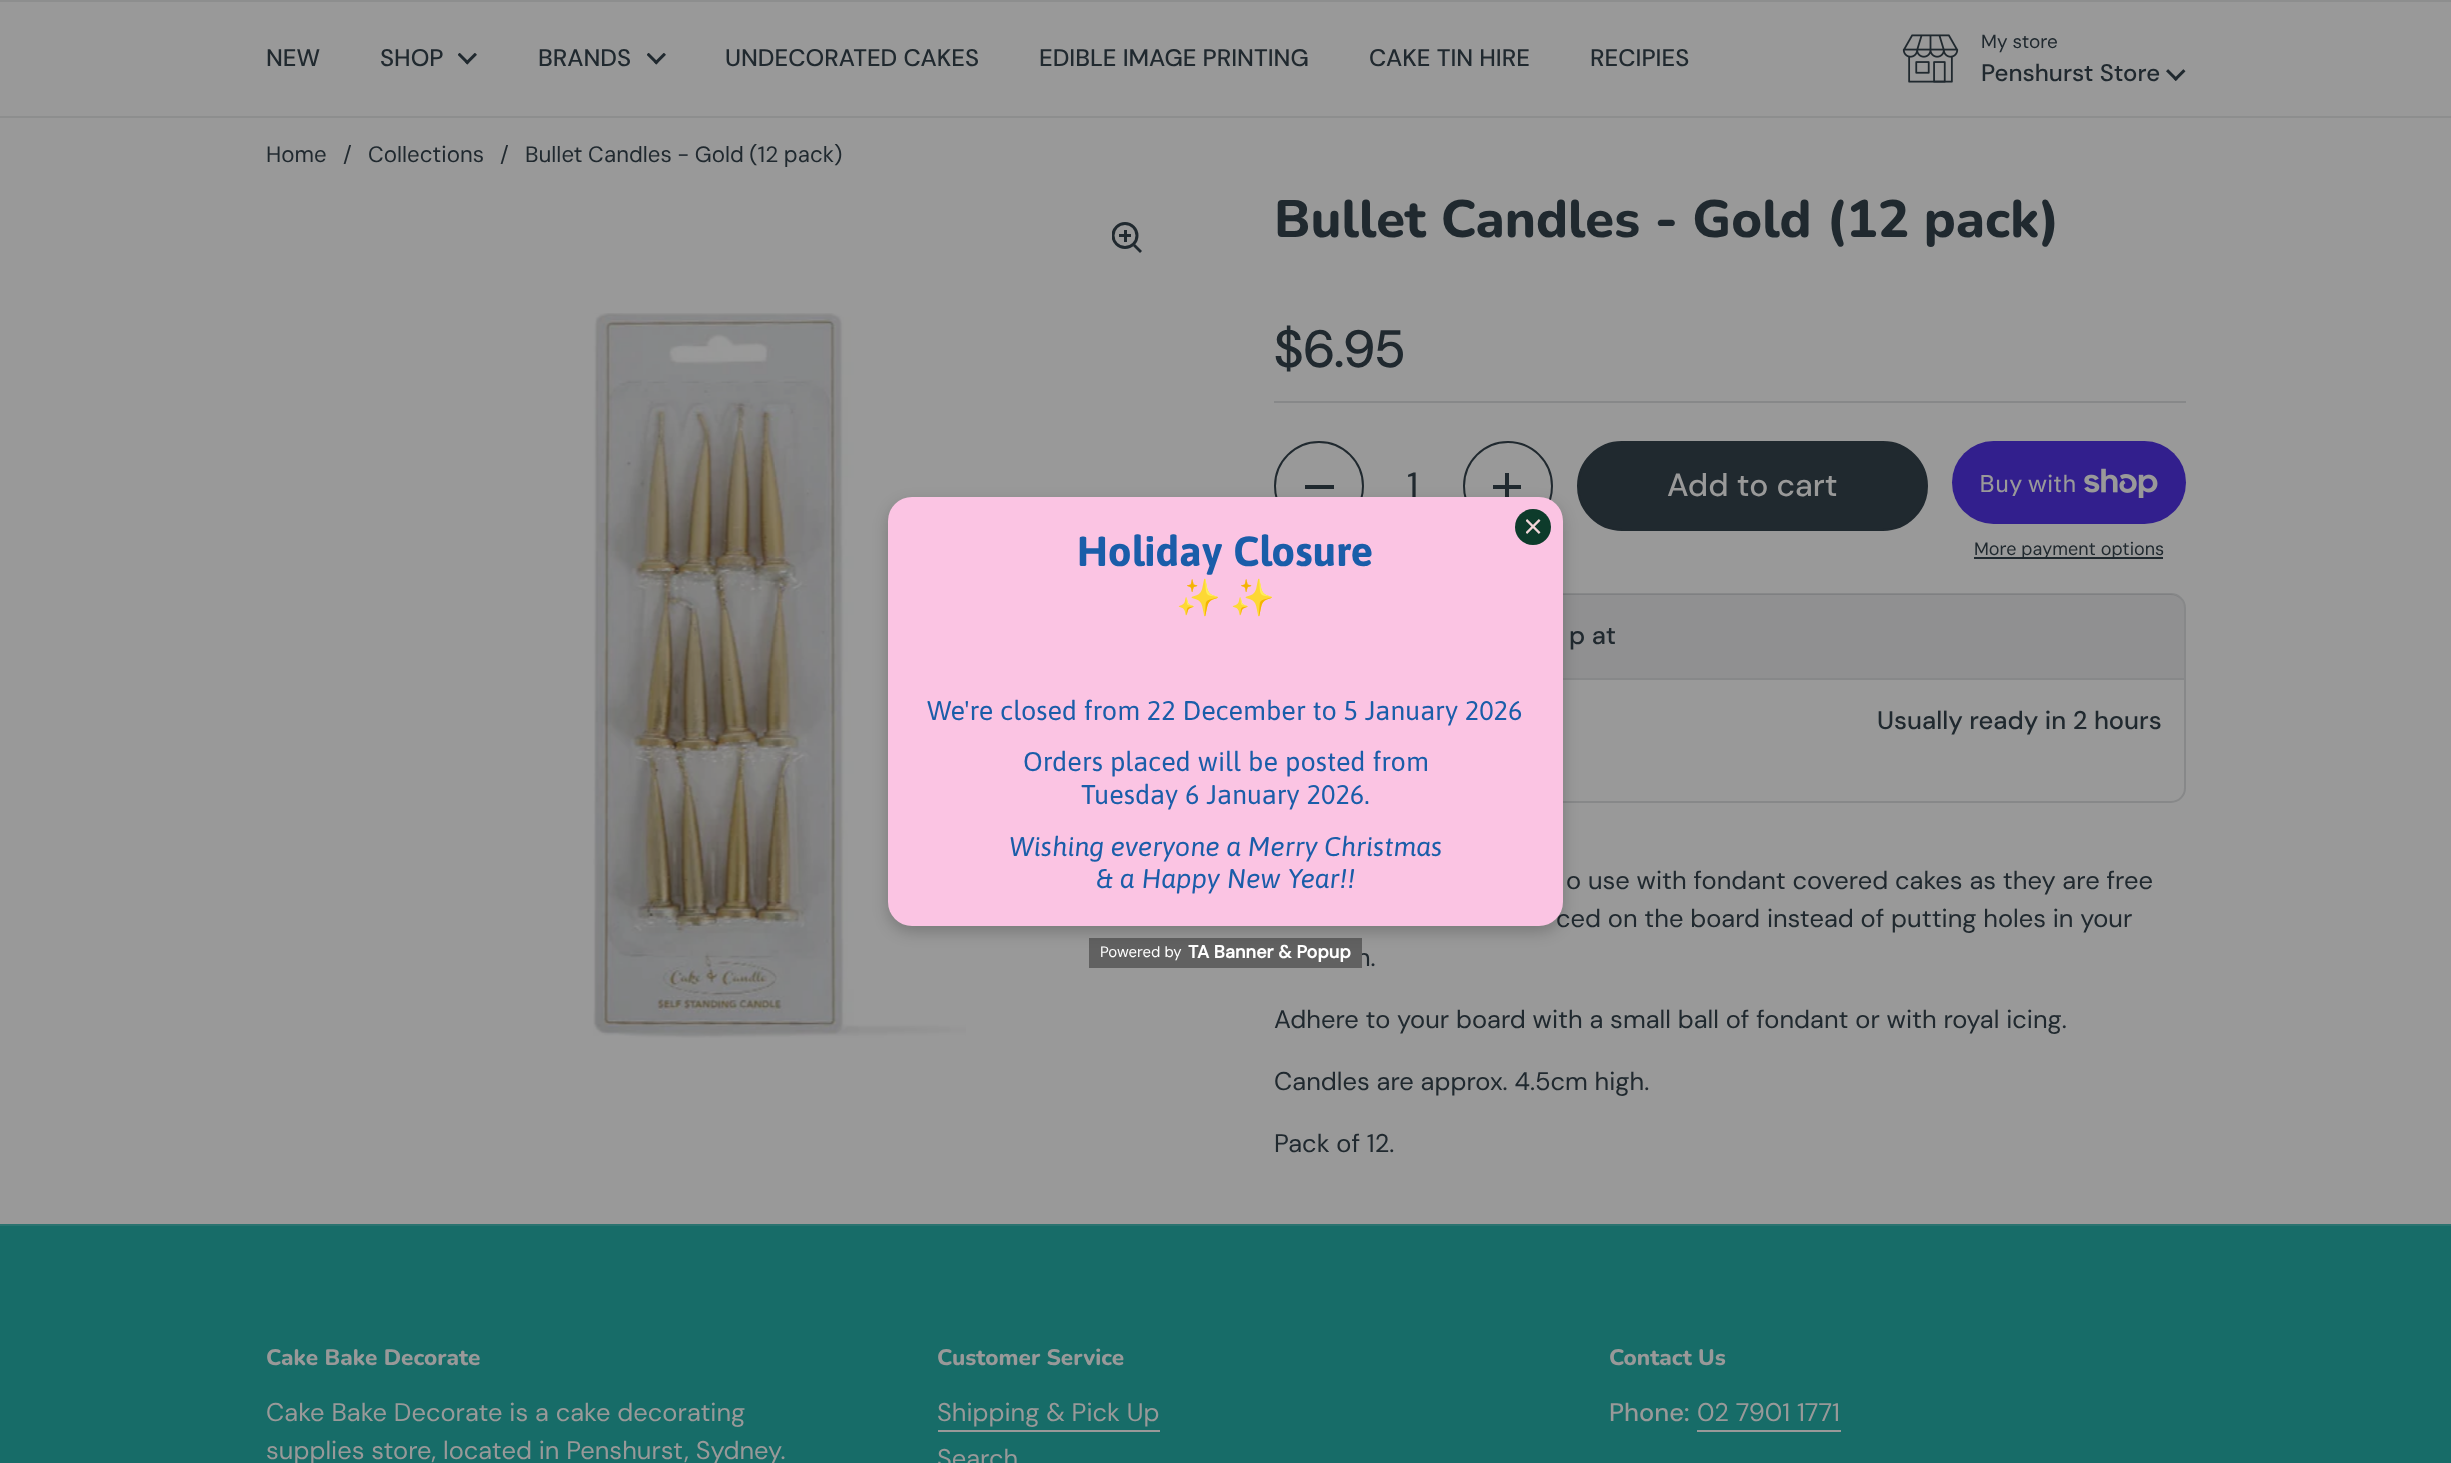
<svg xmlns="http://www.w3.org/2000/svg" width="2451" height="1463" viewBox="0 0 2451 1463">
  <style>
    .t1 { font: 500 24px 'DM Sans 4'; fill: #20292f; }
    .t2 { font: 19px 'DM Sans 4'; fill: #20292f; }
    .t3 { font: 22.25px 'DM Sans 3'; fill: #20292f; }
    .t4 { font: 800 52.5px Nunito; fill: #20292f; }
    .t5 { font: 500 52.5px DM Sans; fill: #20292f; }
    .t6 { font: 38px 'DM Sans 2'; fill: #20292f; }
    .t7 { font: 500 32px 'DM Sans 3'; fill: #999; }
    .t8 { font: 24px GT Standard; fill: #999; }
    .t9 { font: 18px 'DM Sans 3'; fill: #20292f; }
    .t10 { font: 500 25.5px 'DM Sans 2'; fill: #20292f; }
    .t11 { font: 25.5px DM Sans; fill: #20292f; }
    .t12 { font: bold 42px Asap; fill: #1a5da9; }
    .t13 { font: bold 36px Noto Color Emoji; fill: #bbbc58; }
    .t14 { font: 27px Asap; fill: #1a5da9; }
    .t15 { font: italic 27px Asap; fill: #1a5da9; }
    .t16 { font: 15px 'DM Sans 3'; fill: #fff; }
    .t17 { font: bold 18px DM Sans; fill: #fff; }
    .t18 { font: 800 22.5px Nunito; fill: #999; }
    .t19 { font: 25.5px DM Sans; fill: #999; }
    .t20 { font: 500 25.5px 'DM Sans 2'; fill: #999; }
  </style>
  <defs>
    <clipPath id="clip1"><rect x="1112" y="222" width="31" height="32"/></clipPath>
  </defs>
  <rect width="100%" height="100%" fill="#999"/>
  <rect x="0" y="0" width="2451" height="2" fill="#8d8e8e"/>
  <rect x="0" y="116" width="2451" height="2" fill="#8d8e8e"/>
  <text x="266" y="66" class="t1">NEW</text>
  <text x="380" y="66" class="t1">SHOP</text>
  <image x="458" y="53" width="19" height="12" href="images/1.png"/>
  <text x="538" y="66" class="t1">BRANDS</text>
  <image x="647" y="53" width="19" height="12" href="images/1.png"/>
  <text x="725" y="66" class="t1">UNDECORATED CAKES</text>
  <text x="1039" y="66" class="t1">EDIBLE IMAGE PRINTING</text>
  <text x="1369" y="66" class="t1">CAKE TIN HIRE</text>
  <text x="1590" y="66" class="t1">RECIPIES</text>
  <image x="1902" y="34" width="57" height="49" href="images/2.png"/>
  <text x="1981" y="48" class="t2">My store</text>
  <text x="1981" y="81" class="t1">Penshurst Store</text>
  <image x="2166" y="69" width="20" height="12" href="images/3.png"/>
  <text x="266" y="162" class="t3">Home</text>
  <text x="343" y="162" class="t3">/</text>
  <text x="368" y="162" class="t3">Collections</text>
  <text x="500" y="162" class="t3">/</text>
  <text x="525" y="162" word-spacing="-0.5" class="t3">Bullet Candles - Gold (12 pack)</text>
  <g clip-path="url(#clip1)">
    <circle cx="1125" cy="235.5" r="12" fill="none" stroke="#20292f" stroke-width="3"/>
  </g>
  <rect x="1124" y="230" width="3" height="12" fill="#20292f"/>
  <rect x="1119" y="234" width="12" height="3" fill="#20292f"/>
  <path d="M1133 246L1135 244L1142 251L1140 253Z" fill="#20292f"/>
  <image x="593" y="313" width="373" height="725" href="images/4.png"/>
  <text x="1274" y="237" class="t4">Bullet Candles - Gold (12 pack)</text>
  <text x="1274" y="367" class="t5">$6.95</text>
  <rect x="1274" y="401" width="912" height="2" fill="#878889"/>
  <circle cx="1319" cy="486" r="44" fill="none" stroke="#20292f" stroke-width="2"/>
  <rect x="1305" y="485" width="29" height="4" fill="#20292f"/>
  <text x="1407" y="499" class="t6">1</text>
  <circle cx="1508" cy="486" r="44" fill="none" stroke="#20292f" stroke-width="2"/>
  <rect x="1505" y="473" width="4" height="28" fill="#20292f"/>
  <rect x="1493" y="485" width="28" height="4" fill="#20292f"/>
  <rect x="1578" y="442" width="349" height="88" rx="44" fill="#20292f" stroke="#20292f" stroke-width="2"/>
  <text x="1667" y="496" class="t7">Add to cart</text>
  <rect x="1952" y="441" width="234" height="83" rx="41.5" fill="#321f8d"/>
  <text x="1979" y="492" class="t8">Buy with</text>
  <image x="2084" y="468" width="74" height="30" href="images/5.png"/>
  <rect x="1974" y="557" width="189" height="2" fill="#20292f"/>
  <text x="1974" y="555" class="t9">More payment options</text>
  <rect x="1275" y="594" width="910" height="208" rx="14" fill="none" stroke="#878889" stroke-width="2"/>
  <path d="M1289 594H2170C2177.5 594 2184 600.5 2184 608V678H1275V608C1275 600.5 1281.5 594 1289 594Z" fill="#20292f14"/>
  <text x="1569" y="644" class="t10">p at</text>
  <rect x="1563" y="678" width="621" height="2" fill="#20292f26"/>
  <text x="1877" y="729" class="t10">Usually ready in 2 hours</text>
  <text x="1566" y="889" class="t11">o use with fondant covered cakes as they are free</text>
  <text x="1556" y="927" class="t11">ced on the board instead of putting holes in your</text>
  <text x="1356" y="966" class="t11">n.</text>
  <text x="1274" y="1028" class="t11">Adhere to your board with a small ball of fondant or with royal icing.</text>
  <text x="1274" y="1090" class="t11">Candles are approx. 4.5cm high.</text>
  <text x="1274" y="1152" class="t11">Pack of 12.</text>
  <rect x="1089" y="938" width="273" height="30" fill="#616161"/>
  <rect x="888" y="503" width="675" height="429" rx="24" fill="#00000033" filter="blur(7.5px)"/>
  <rect x="888" y="497" width="675" height="429" rx="24" fill="#fbc4e3"/>
  <circle cx="1533" cy="527" r="18" fill="#0d3b2b"/>
  <image x="1526" y="519" width="15" height="15" href="images/6.png"/>
  <text x="1077" y="566" word-spacing="1" class="t12">Holiday Closure</text>
  <text x="1176" y="610" class="t13">✨</text>
  <text x="1230" y="610" class="t13">✨</text>
  <text x="927" y="720" word-spacing="0.25" class="t14">We're closed from 22 December to 5 January 2026</text>
  <text x="1023" y="771" word-spacing="0.5" class="t14">Orders placed will be posted from</text>
  <text x="1081" y="804" word-spacing="0.5" class="t14">Tuesday 6 January 2026.</text>
  <text x="1009" y="856" class="t15">Wishing everyone a Merry Christmas</text>
  <text x="1096" y="888" word-spacing="0.5" class="t15">&amp; a Happy New Year!!</text>
  <text x="1100" y="957" class="t16">Powered by</text>
  <text x="1188" y="958" class="t17">TA Banner &amp; Popup</text>
  <rect x="0" y="1226" width="2451" height="237" fill="#176c68"/>
  <rect x="0" y="1224" width="2451" height="2" fill="#2b7370"/>
  <text x="266" y="1365" class="t18">Cake Bake Decorate</text>
  <text x="266" y="1421" class="t19">Cake Bake Decorate is a cake decorating</text>
  <text x="266" y="1459" class="t19">supplies store, located in Penshurst, Sydney.</text>
  <text x="937" y="1365" class="t18">Customer Service</text>
  <text x="937" y="1421" class="t19">Shipping &amp; Pick Up</text>
  <rect x="938" y="1430" width="222" height="2" fill="#999"/>
  <text x="937" y="1467" class="t19">Search</text>
  <text x="1609" y="1365" class="t18">Contact Us</text>
  <text x="1609" y="1421" class="t20">Phone:</text>
  <text x="1697" y="1421" class="t19">02 7901 1771</text>
  <rect x="1697" y="1430" width="144" height="2" fill="#999"/>
</svg>
